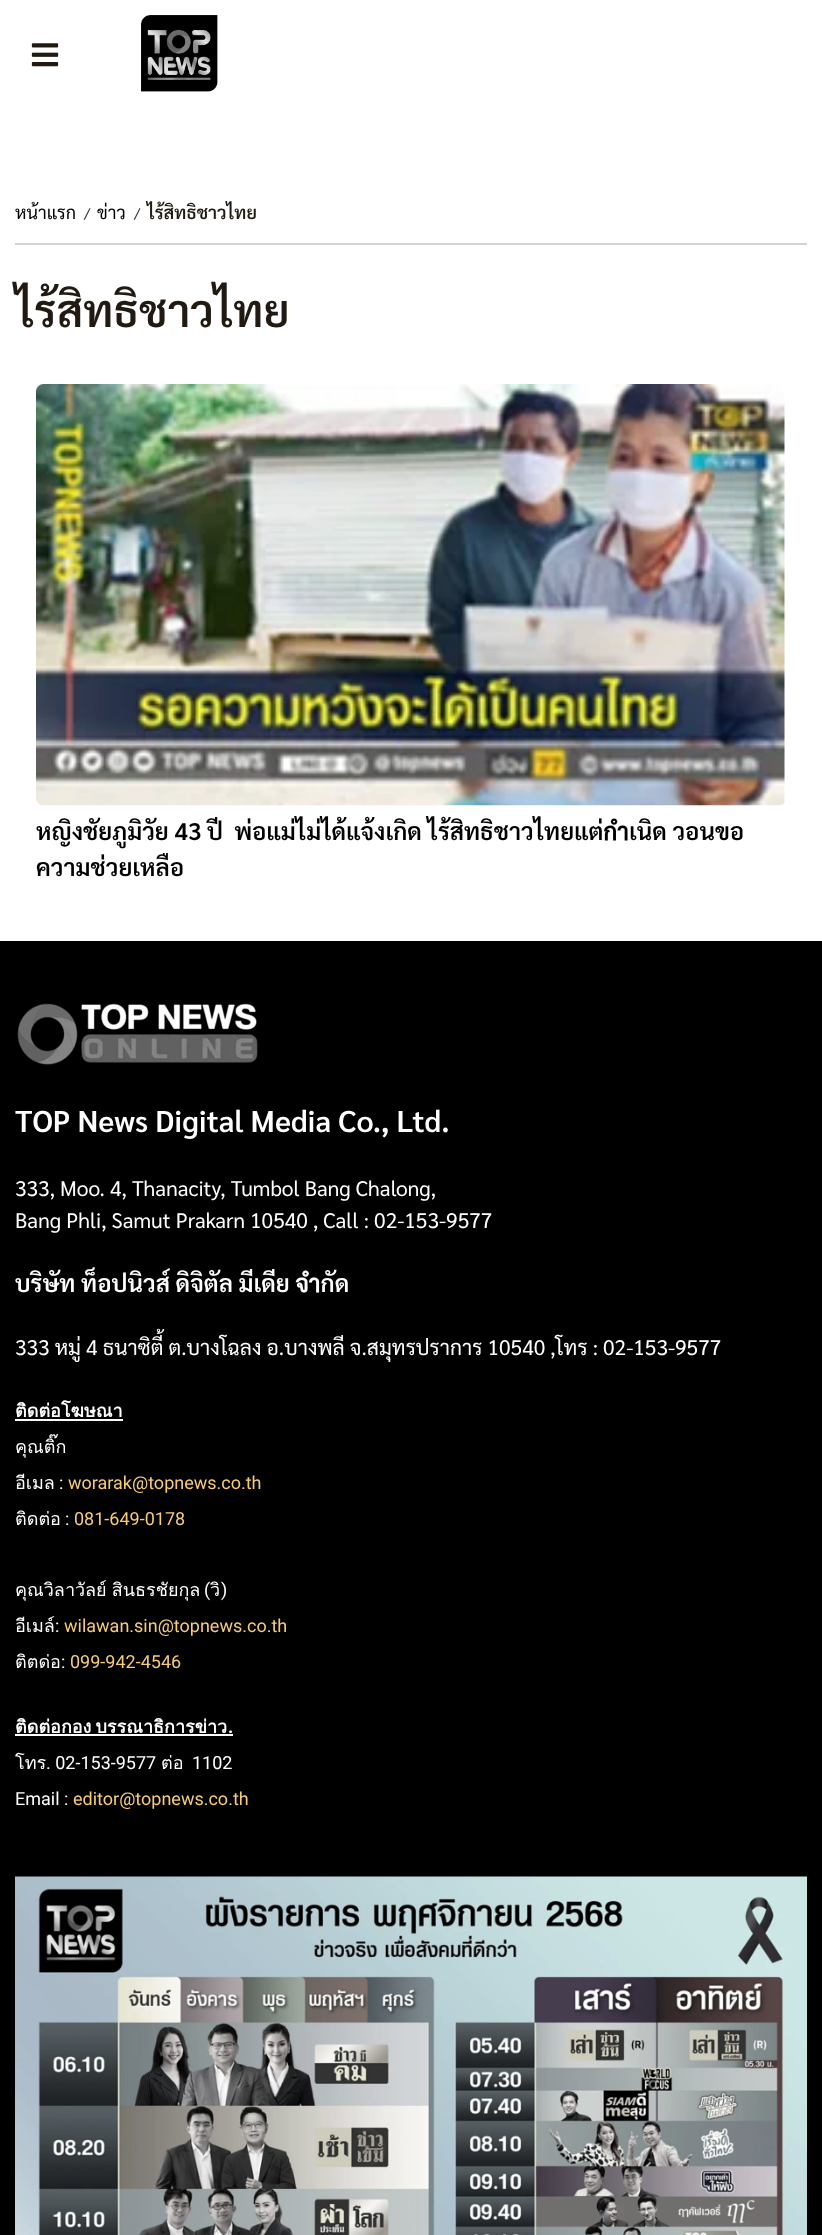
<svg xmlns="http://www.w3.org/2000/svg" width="822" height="2235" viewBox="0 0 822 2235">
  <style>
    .t1 { font: 18px Sarabun; fill: #000; }
    .t2 { font: 15px Sarabun; fill: #333; }
    .t3 { font: 600 18px Sarabun; fill: #201a13; }
    .t4 { font: 600 45px Sarabun; fill: #201a13; }
    .t5 { font: 600 24px Sarabun; fill: #000; }
    .t6 { font: 600 30px Sarabun; fill: #fff; }
    .t7 { font: 21px Sarabun; fill: #fff; }
    .t8 { font: 600 24px Sarabun; fill: #fff; }
    .t9 { font: bold 18px Loma; fill: #fff; }
    .t10 { font: 18px Loma; fill: #fff; }
    .t11 { font: 18px Roboto; fill: #fff; }
    .t12 { font: 18px Roboto; fill: #f7cc76; }
    .t13 { font: bold 18px Roboto; fill: #fff; }
  </style>
  <rect width="100%" height="100%" fill="#fff"/>
  <image x="31" y="43" width="28" height="24" href="images/1.png"/>
  <image x="141" y="15" width="77" height="77" href="images/2.png"/>
  <text x="15" y="219" class="t1">หน้าแรก</text>
  <text x="84" y="219" class="t2">/</text>
  <text x="97" y="219" class="t1">ข่าว</text>
  <text x="134" y="219" class="t2">/</text>
  <text x="147" y="219" class="t3">ไร้สิทธิชาวไทย</text>
  <rect x="15" y="243" width="792" height="2" fill="#d3d3d3"/>
  <text x="15" y="327" class="t4">ไร้สิทธิชาวไทย</text>
  <image x="36" y="384" width="749" height="422" href="images/3.png"/>
  <text x="36" y="840" class="t5" xml:space="preserve">หญิงชัยภูมิวัย 43 ปี  พ่อแม่ไม่ได้แจ้งเกิด ไร้สิทธิชาวไทยแต่กำเนิด วอนขอ</text>
  <text x="36" y="876" class="t5">ความช่วยเหลือ</text>
  <rect x="0" y="941" width="822" height="1294" fill="#000"/>
  <image x="17" y="1003" width="241" height="62" href="images/4.png"/>
  <text x="15" y="1132" class="t6">TOP News Digital Media Co., Ltd.</text>
  <text x="15" y="1196" class="t7">333, Moo. 4, Thanacity, Tumbol Bang Chalong,</text>
  <text x="15" y="1228" class="t7">Bang Phli, Samut Prakarn 10540 , Call : 02-153-9577</text>
  <text x="15" y="1292" class="t8">บริษัท ท็อปนิวส์ ดิจิตัล มีเดีย จำกัด</text>
  <text x="15" y="1355" class="t7">333 หมู่ 4 ธนาซิตี้ ต.บางโฉลง อ.บางพลี จ.สมุทรปราการ 10540 ,โทร : 02-153-9577</text>
  <text x="15" y="1417" class="t9">ติดต่อโฆษณา</text>
  <rect x="15" y="1419" width="108" height="2" fill="#fff"/>
  <text x="15" y="1453" class="t10">คุณติ๊ก</text>
  <text x="15" y="1489" class="t10">อีเมล</text>
  <text x="59" y="1489" class="t11">:</text>
  <text x="68" y="1489" class="t12">worarak@topnews.co.th</text>
  <text x="15" y="1525" class="t10">ติดต่อ</text>
  <text x="65" y="1525" class="t11">:</text>
  <text x="74" y="1525" class="t12">081-649-0178</text>
  <text x="15" y="1596" word-spacing="-1" class="t10">คุณวิลาวัลย์ สินธรชัยกุล</text>
  <text x="204" y="1596" class="t11">(</text>
  <text x="210" y="1596" class="t10">วิ</text>
  <text x="221" y="1596" class="t11">)</text>
  <text x="15" y="1632" class="t10">อีเมล์</text>
  <text x="55" y="1632" class="t11">:</text>
  <text x="64" y="1632" class="t12">wilawan.sin@topnews.co.th</text>
  <text x="15" y="1668" class="t10">ติตด่อ</text>
  <text x="61" y="1668" class="t11">:</text>
  <text x="70" y="1668" class="t12">099-942-4546</text>
  <text x="15" y="1733" word-spacing="-2" class="t9">ติดต่อกอง บรรณาธิการข่าว</text>
  <text x="228" y="1733" class="t13">.</text>
  <rect x="15" y="1734" width="218" height="2" fill="#fff"/>
  <text x="15" y="1769" class="t10">โทร</text>
  <text x="46" y="1769" class="t11">. 02-153-9577</text>
  <text x="161" y="1769" class="t10">ต่อ</text>
  <text x="192" y="1769" class="t11">1102</text>
  <text x="15" y="1805" class="t11">Email :</text>
  <text x="73" y="1805" class="t12">editor@topnews.co.th</text>
  <image x="15" y="1876" width="792" height="359" href="images/5.png"/>
</svg>
